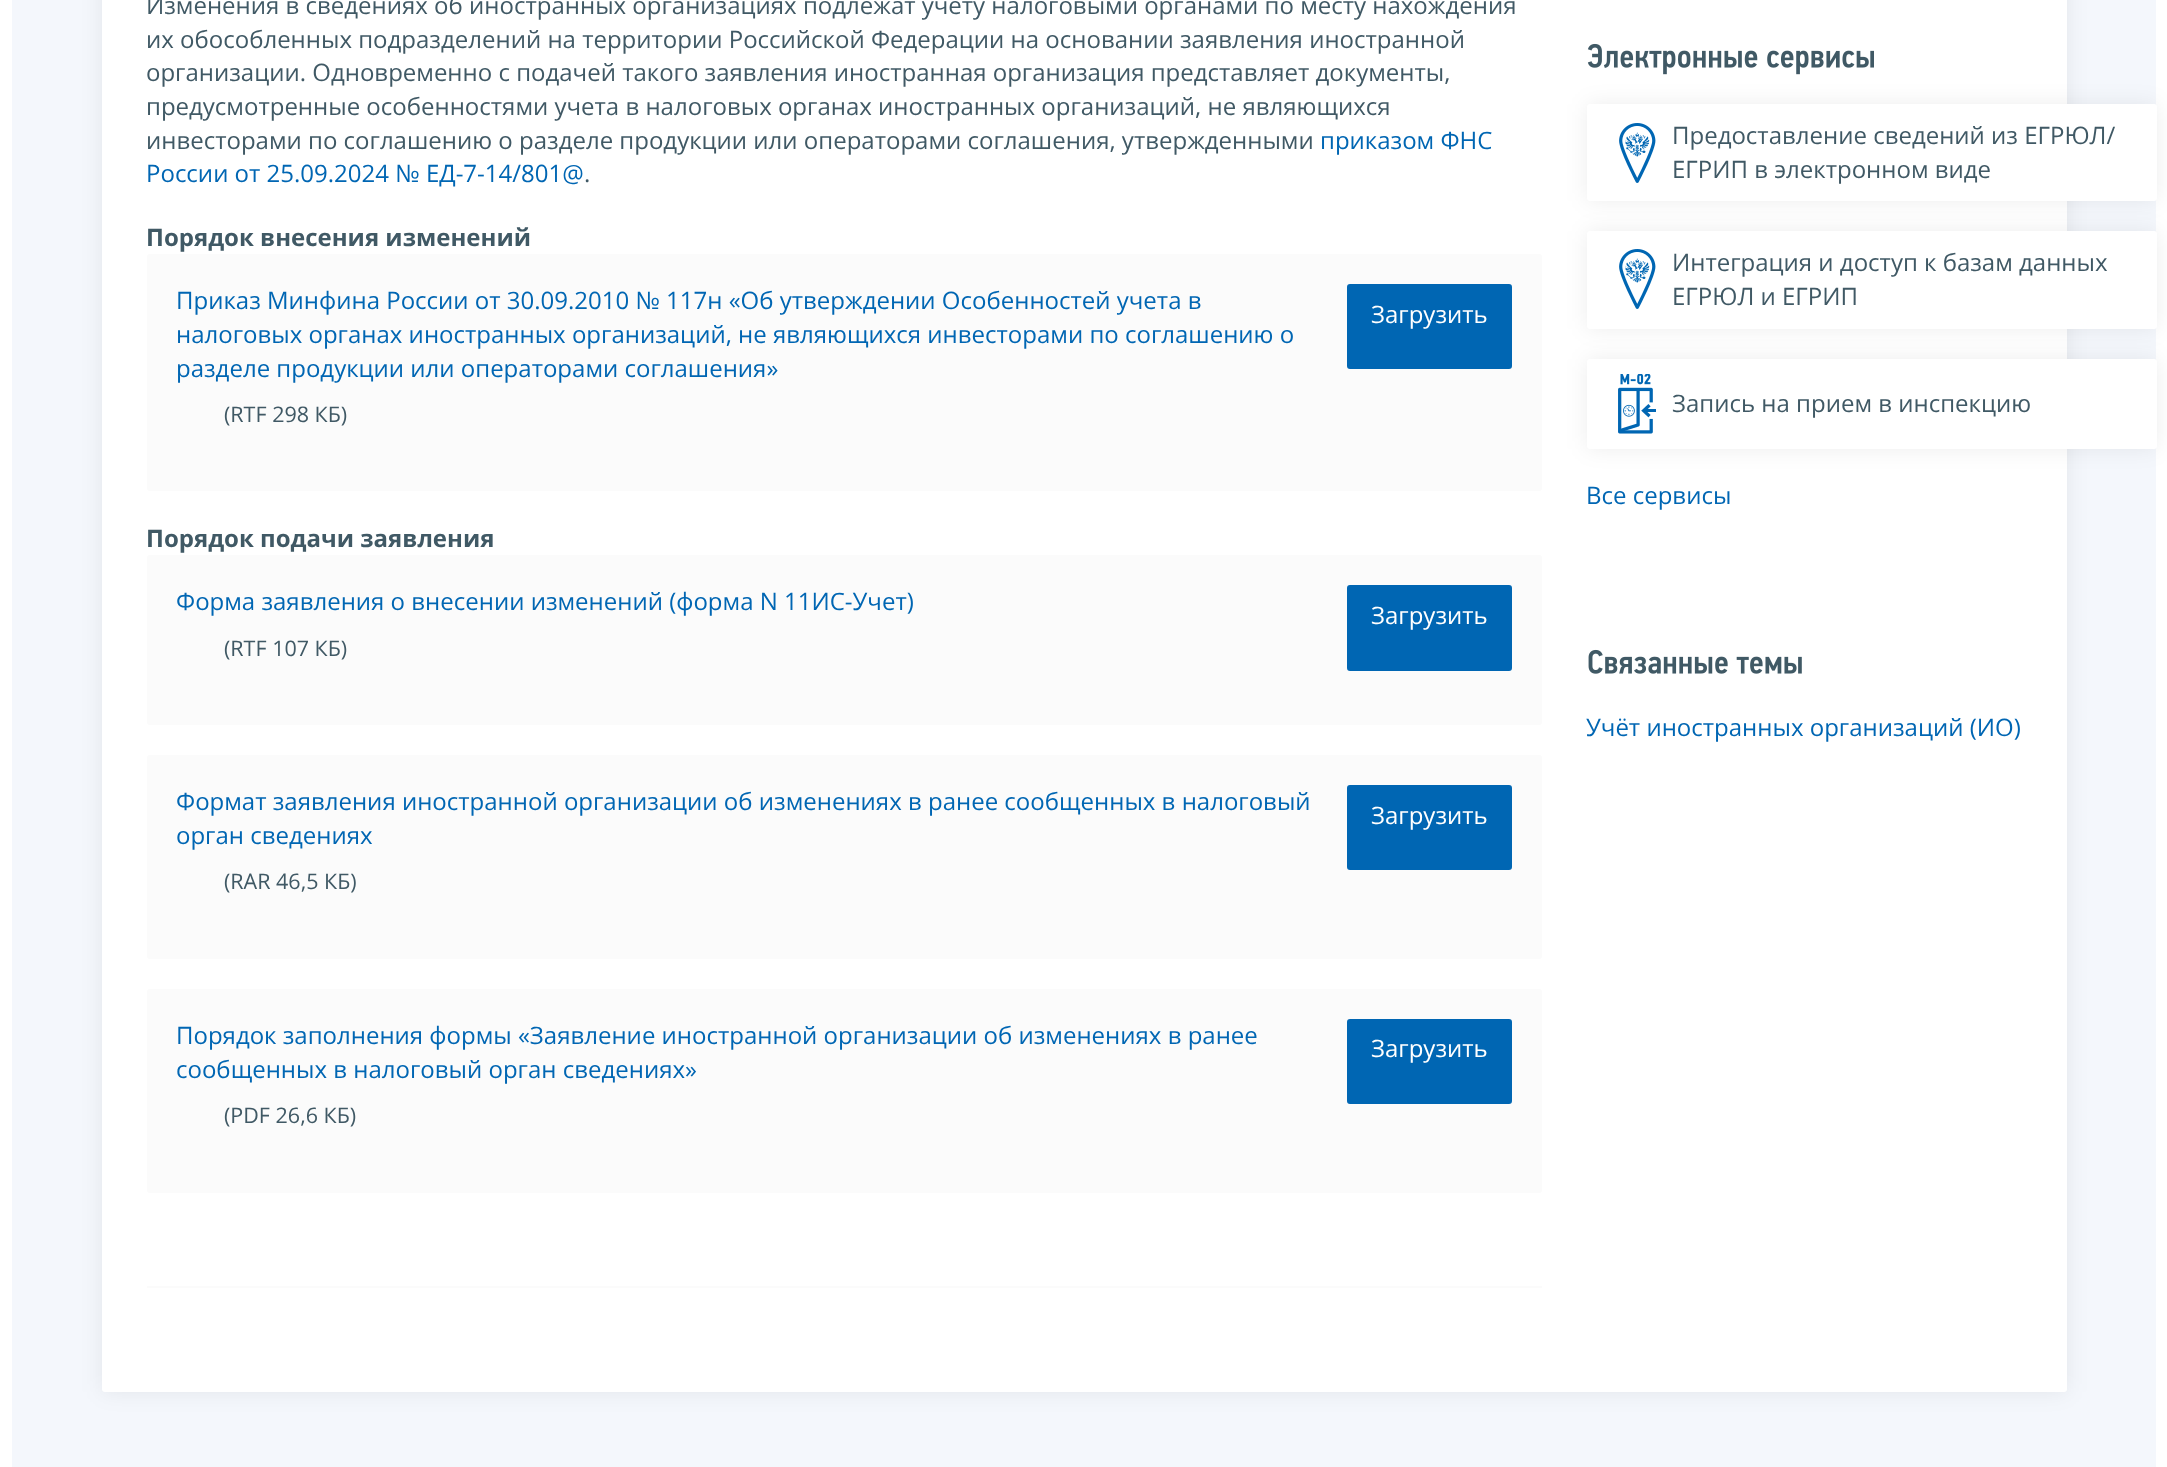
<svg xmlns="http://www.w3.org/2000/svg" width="2167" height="1467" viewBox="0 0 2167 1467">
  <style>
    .t1 { font: 24px Open Sans; fill: #405965; }
    .t2 { font: 24px Open Sans; fill: #0066b3; }
    .t3 { font: bold 24px Open Sans; fill: #405965; }
    .t4 { font: 21.5px Open Sans; fill: #405965; }
    .t5 { font: 24px Open Sans; fill: #fff; }
  </style>
  <rect width="100%" height="100%" fill="#fff"/>
  <rect x="12" y="0" width="2144" height="1467" fill="#f4f7fc"/>
  <rect x="102" y="-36" width="1965" height="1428" rx="3" fill="#00000012" filter="blur(11px)"/>
  <rect x="102" y="-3" width="1965" height="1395" rx="3" fill="#fff"/>
  <text x="146" y="14" class="t1">Изменения в сведениях об иностранных организациях подлежат учету налоговыми органами по месту нахождения</text>
  <text x="146" y="48" class="t1">их обособленных подразделений на территории Российской Федерации на основании заявления иностранной</text>
  <text x="146" y="81" class="t1">организации. Одновременно с подачей такого заявления иностранная организация представляет документы,</text>
  <text x="146" y="115" class="t1">предусмотренные особенностями учета в налоговых органах иностранных организаций, не являющихся</text>
  <text x="146" y="149" class="t1">инвесторами по соглашению о разделе продукции или операторами соглашения, утвержденными</text>
  <text x="1320" y="149" class="t2">приказом ФНС</text>
  <text x="146" y="182" class="t2">России от 25.09.2024 № ЕД-7-14/801@</text>
  <text x="584" y="182" class="t1">.</text>
  <text x="146" y="246" class="t3">Порядок внесения изменений</text>
  <rect x="147" y="254" width="1395" height="237" rx="3" fill="#fbfbfb"/>
  <text x="176" y="309" class="t2">Приказ Минфина России от 30.09.2010 № 117н «Об утверждении Особенностей учета в</text>
  <text x="176" y="343" class="t2">налоговых органах иностранных организаций, не являющихся инвесторами по соглашению о</text>
  <text x="176" y="377" class="t2">разделе продукции или операторами соглашения»</text>
  <text x="224" y="422" class="t4">(RTF 298 КБ)</text>
  <rect x="1348" y="285" width="163" height="83" rx="2" fill="#0066b3" stroke="#0066b3" stroke-width="2"/>
  <text x="1371" y="323" class="t5">Загрузить</text>
  <text x="146" y="547" class="t3">Порядок подачи заявления</text>
  <rect x="147" y="555" width="1395" height="170" rx="3" fill="#fbfbfb"/>
  <text x="176" y="610" class="t2">Форма заявления о внесении изменений (форма N 11ИС-Учет)</text>
  <text x="224" y="656" class="t4">(RTF 107 КБ)</text>
  <rect x="1348" y="586" width="163" height="84" rx="2" fill="#0066b3" stroke="#0066b3" stroke-width="2"/>
  <text x="1371" y="624" class="t5">Загрузить</text>
  <rect x="147" y="755" width="1395" height="204" rx="3" fill="#fbfbfb"/>
  <text x="176" y="810" class="t2">Формат заявления иностранной организации об изменениях в ранее сообщенных в налоговый</text>
  <text x="176" y="844" class="t2">орган сведениях</text>
  <text x="224" y="889" class="t4">(RAR 46,5 КБ)</text>
  <rect x="1348" y="786" width="163" height="83" rx="2" fill="#0066b3" stroke="#0066b3" stroke-width="2"/>
  <text x="1371" y="824" class="t5">Загрузить</text>
  <rect x="147" y="989" width="1395" height="204" rx="3" fill="#fbfbfb"/>
  <text x="176" y="1044" class="t2">Порядок заполнения формы «Заявление иностранной организации об изменениях в ранее</text>
  <text x="176" y="1078" class="t2">сообщенных в налоговый орган сведениях»</text>
  <text x="224" y="1123" class="t4">(PDF 26,6 КБ)</text>
  <rect x="1348" y="1020" width="163" height="83" rx="2" fill="#0066b3" stroke="#0066b3" stroke-width="2"/>
  <text x="1371" y="1057" class="t5">Загрузить</text>
  <rect x="147" y="1286" width="1395" height="2" fill="#fbfbfb"/>
  <rect x="1587" y="104" width="570" height="97" rx="3" fill="#00000012" filter="blur(11px)"/>
  <image x="1587" y="43" width="287" height="32" href="images/1.png"/>
  <rect x="1587" y="104" width="570" height="97" rx="3" fill="#fff"/>
  <image x="1619" y="123" width="37" height="60" href="images/2.png"/>
  <text x="1672" y="144" class="t1">Предоставление сведений из ЕГРЮЛ/</text>
  <text x="1672" y="178" class="t1">ЕГРИП в электронном виде</text>
  <rect x="1587" y="231" width="570" height="98" rx="3" fill="#00000012" filter="blur(11px)"/>
  <rect x="1587" y="231" width="570" height="98" rx="3" fill="#fff"/>
  <image x="1619" y="249" width="37" height="60" href="images/2.png"/>
  <text x="1672" y="271" class="t1">Интеграция и доступ к базам данных</text>
  <text x="1672" y="305" class="t1">ЕГРЮЛ и ЕГРИП</text>
  <rect x="1587" y="359" width="570" height="90" rx="3" fill="#00000012" filter="blur(11px)"/>
  <rect x="1587" y="359" width="570" height="90" rx="3" fill="#fff"/>
  <image x="1618" y="374" width="38" height="60" href="images/3.png"/>
  <text x="1672" y="412" class="t1">Запись на прием в инспекцию</text>
  <text x="1586" y="504" class="t2">Все сервисы</text>
  <image x="1588" y="649" width="214" height="25" href="images/4.png"/>
  <text x="1586" y="736" class="t2">Учёт иностранных организаций (ИО)</text>
</svg>
